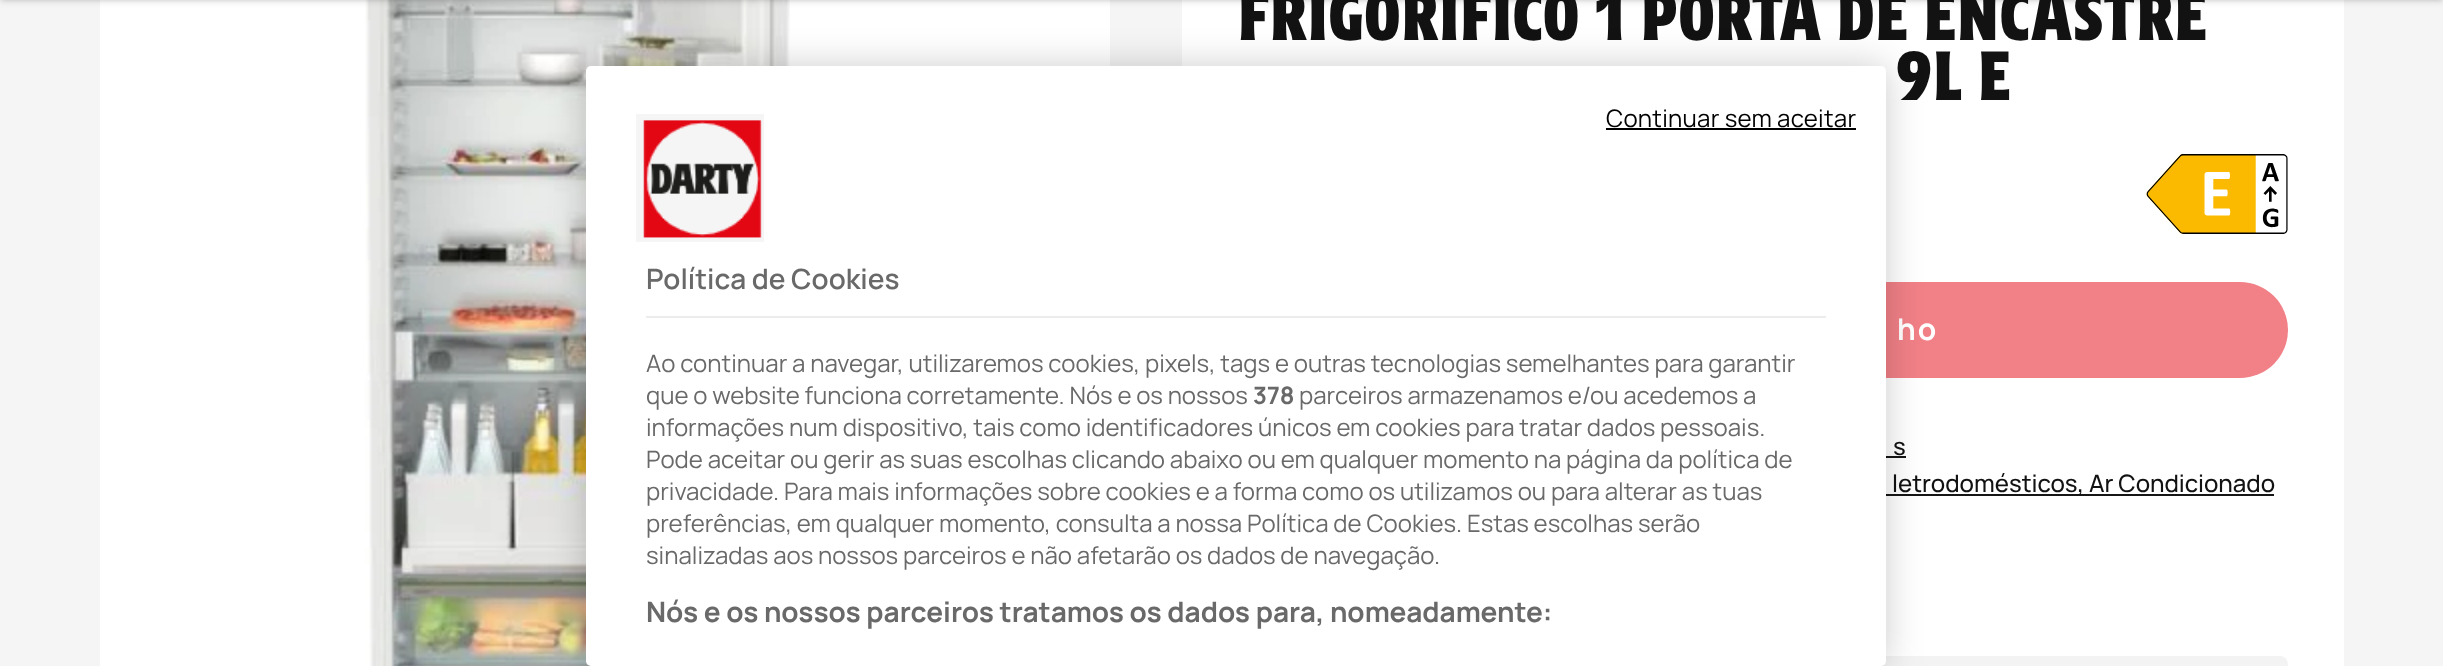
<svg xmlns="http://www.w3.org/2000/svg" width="2443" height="666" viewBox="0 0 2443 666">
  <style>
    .t1 { font: 900 60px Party; letter-spacing: 1.2px; fill: #121212; }
    .t2 { font: bold 30px Manrope; letter-spacing: 2px; fill: #fff; }
    .t3 { font: 500 24px Manrope; fill: #121212; }
    .t4 { font: 24px Manrope; letter-spacing: 0.25px; fill: #000; }
    .t5 { font: 600 28px Manrope; fill: #696969; }
    .t6 { font: 24px Manrope; fill: #696969; }
    .t7 { font: bold 24px Manrope; fill: #696969; }
    .t8 { font: bold 28px Manrope; fill: #696969; }
  </style>
  <rect width="100%" height="100%" fill="#f5f5f5"/>
  <rect x="100" y="0" width="1010" height="666" fill="#fff"/>
  <image x="365" y="0" width="425" height="666" href="images/1.png"/>
  <rect x="1182" y="0" width="1162" height="666" fill="#fff"/>
  <rect x="2" y="-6" width="2440" height="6" fill="#0000001a" filter="blur(2px)"/>
  <rect x="0" y="-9" width="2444" height="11" fill="#0000001a" filter="blur(3px)"/>
  <text x="1238" y="40" class="t1">Frigorífico 1 Porta de Encastre</text>
  <text x="1896" y="100" class="t1">9L E</text>
  <image x="2146" y="154" width="142" height="80" href="images/2.png"/>
  <rect x="1238" y="282" width="1050" height="96" rx="48" fill="#f18087"/>
  <text x="1897" y="340" class="t2">ho</text>
  <text x="1893" y="455" class="t3">s</text>
  <rect x="1886" y="456" width="20" height="2" fill="#171616"/>
  <rect x="1886" y="494" width="388" height="2" fill="#171616"/>
  <text x="1892" y="492" class="t3">letrodomésticos, Ar Condicionado</text>
  <rect x="1238" y="656" width="1050" height="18" rx="8" fill="#f3f3f3"/>
  <rect x="586" y="66" width="1300" height="600" rx="5" fill="#00000033" filter="blur(18px)"/>
  <rect x="586" y="66" width="1300" height="600" rx="5" fill="#fff"/>
  <text x="1606" y="127" class="t4">Continuar sem aceitar</text>
  <rect x="1606" y="128" width="250" height="2" fill="#000"/>
  <image x="636" y="114" width="128" height="128" href="images/3.png"/>
  <text x="646" y="289" class="t5">Política de Cookies</text>
  <rect x="646" y="316" width="1180" height="2" fill="#ececec"/>
  <text x="646" y="372" class="t6">Ao continuar a navegar, utilizaremos cookies, pixels, tags e outras tecnologias semelhantes para garantir</text>
  <text x="646" y="404" class="t6">que o website funciona corretamente. Nós e os nossos</text>
  <text x="1253" y="404" class="t7">378</text>
  <text x="1299" y="404" class="t6">parceiros armazenamos e/ou acedemos a</text>
  <text x="646" y="436" class="t6">informações num dispositivo, tais como identificadores únicos em cookies para tratar dados pessoais.</text>
  <text x="646" y="468" class="t6">Pode aceitar ou gerir as suas escolhas clicando abaixo ou em qualquer momento na página da política de</text>
  <text x="646" y="500" class="t6">privacidade. Para mais informações sobre cookies e a forma como os utilizamos ou para alterar as tuas</text>
  <text x="646" y="532" class="t6">preferências, em qualquer momento, consulta a nossa Política de Cookies. Estas escolhas serão</text>
  <text x="646" y="564" class="t6">sinalizadas aos nossos parceiros e não afetarão os dados de navegação.</text>
  <text x="646" y="622" class="t8">Nós e os nossos parceiros tratamos os dados para, nomeadamente:</text>
</svg>
